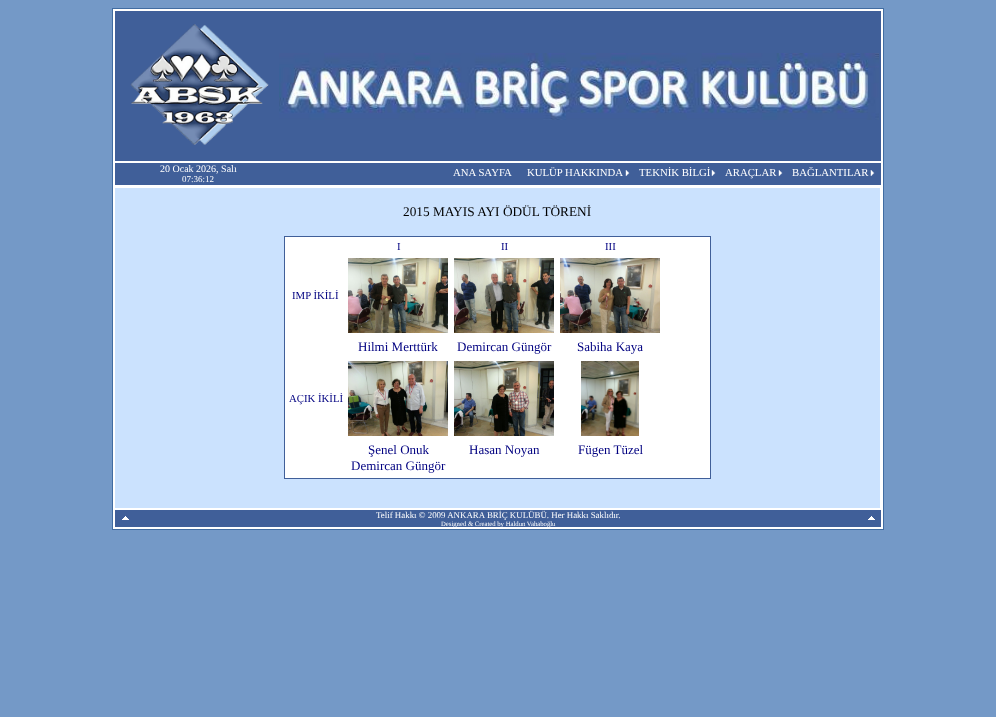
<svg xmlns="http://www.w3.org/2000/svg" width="996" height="717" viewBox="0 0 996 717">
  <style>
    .t1 { font: 10px Liberation Serif; fill: #fff; }
    .t2 { font: 9px Liberation Serif; fill: #fff; }
    .t3 { font: 10.75px Liberation Serif; fill: #fff; }
    .t4 { font: 13.3px Liberation Serif; fill: #000; }
    .t5 { font: 10.75px Liberation Serif; fill: #000080; }
    .t6 { font: 13px Liberation Serif; fill: #000080; }
    .t7 { font: 8.9px Liberation Serif; fill: #fff; }
    .t8 { font: 6.7px Liberation Serif; fill: #fff; }
  </style>
  <rect width="100%" height="100%" fill="#7499c7"/>
  <rect x="112.5" y="8.5" width="771" height="521" fill="#fff" stroke="#416ca1"/>
  <rect x="115" y="11" width="766" height="150" fill="#405f99"/>
  <image x="130" y="24" width="139" height="121" href="images/1.png"/>
  <image x="279" y="53" width="600" height="67" href="images/2.png"/>
  <rect x="115" y="163" width="766" height="22" fill="#405f99"/>
  <text x="160" y="172" class="t1">20 Ocak 2026, Salı</text>
  <text x="182" y="182" class="t2">07:36:12</text>
  <text x="453" y="176" class="t3">ANA SAYFA</text>
  <text x="527" y="176" class="t3">KULÜP HAKKINDA</text>
  <image x="625" y="170" width="5" height="6" href="images/3.png"/>
  <text x="639" y="176" class="t3">TEKNİK BİLGİ</text>
  <image x="711" y="170" width="5" height="6" href="images/3.png"/>
  <text x="725" y="176" class="t3">ARAÇLAR</text>
  <image x="778" y="170" width="5" height="6" href="images/3.png"/>
  <text x="792" y="176" class="t3">BAĞLANTILAR</text>
  <image x="870" y="170" width="5" height="6" href="images/4.png"/>
  <rect x="115" y="188" width="765" height="320" fill="#cbe2fe"/>
  <text x="403" y="216" class="t4">2015 MAYIS AYI ÖDÜL TÖRENİ</text>
  <rect x="284.5" y="236.5" width="426" height="242" fill="#fff" stroke="#405f99"/>
  <text x="397" y="250" class="t5">I</text>
  <text x="501" y="250" class="t5">II</text>
  <text x="605" y="250" class="t5">III</text>
  <text x="292" y="299" class="t5">IMP İKİLİ</text>
  <image x="348" y="258" width="100" height="75" href="images/5.png"/>
  <image x="454" y="258" width="100" height="75" href="images/6.png"/>
  <image x="560" y="258" width="100" height="75" href="images/7.png"/>
  <text x="358" y="351" class="t6">Hilmi Merttürk</text>
  <text x="457" y="351" class="t6">Demircan Güngör</text>
  <text x="577" y="351" class="t6">Sabiha Kaya</text>
  <text x="289" y="402" class="t5">AÇIK İKİLİ</text>
  <image x="348" y="361" width="100" height="75" href="images/8.png"/>
  <image x="454" y="361" width="100" height="75" href="images/9.png"/>
  <image x="581" y="361" width="58" height="75" href="images/10.png"/>
  <text x="368" y="454" class="t6">Şenel Onuk</text>
  <text x="351" y="470" class="t6">Demircan Güngör</text>
  <text x="469" y="454" class="t6">Hasan Noyan</text>
  <text x="578" y="454" class="t6">Fügen Tüzel</text>
  <rect x="115" y="510" width="766" height="17" fill="#405f99"/>
  <image x="122" y="516" width="7" height="4" href="images/11.png"/>
  <text x="376" y="518" class="t7">Telif Hakkı © 2009 ANKARA BRİÇ KULÜBÜ. Her Hakkı Saklıdır.</text>
  <text x="441" y="526" class="t8">Designed &amp; Created by Haldun Vahaboğlu</text>
  <image x="868" y="516" width="7" height="4" href="images/11.png"/>
</svg>
